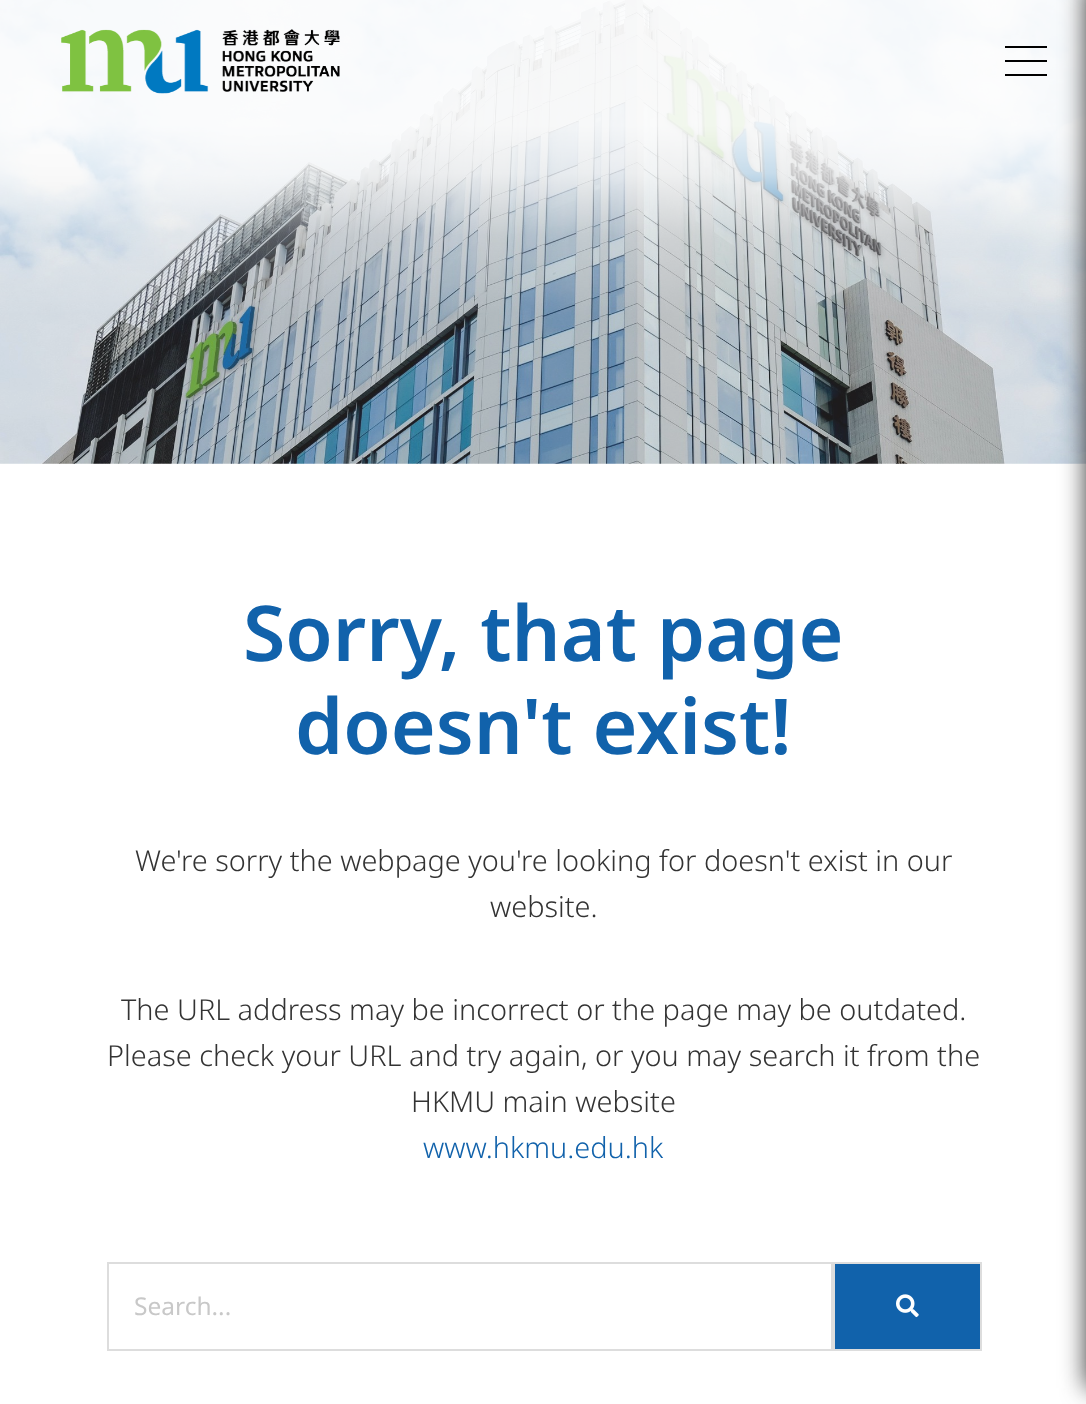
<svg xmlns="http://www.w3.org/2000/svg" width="1086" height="1404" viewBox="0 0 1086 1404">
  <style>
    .t1 { font: 600 77px Noto Sans; fill: #1162ab; }
    .t2 { font: 300 28.9px Noto Sans; fill: #333; }
    .t3 { font: 300 28.9px Noto Sans; fill: #1162ab; }
    .t4 { font: 24.5px Noto Sans; fill: #c8c8c8; }
  </style>
  <rect width="100%" height="100%" fill="#fff"/>
  <image x="0" y="0" width="1086" height="464" href="images/1.png"/>
  <image x="61" y="29" width="279" height="65" href="images/2.png"/>
  <rect x="1005" y="60" width="42" height="2" fill="#000"/>
  <rect x="1005" y="46" width="42" height="2" fill="#000"/>
  <rect x="1005" y="74" width="42" height="2" fill="#000"/>
  <rect x="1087" y="-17" width="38" height="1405" fill="#2d2d2d" filter="blur(13px)"/>
  <text x="243" y="661" class="t1">Sorry, that page</text>
  <text x="295" y="754" class="t1">doesn't exist!</text>
  <text x="135" y="871" class="t2">We're sorry the webpage you're looking for doesn't exist in our</text>
  <text x="490" y="917" class="t2">website.</text>
  <text x="121" y="1020" class="t2">The URL address may be incorrect or the page may be outdated.</text>
  <text x="107" y="1066" class="t2">Please check your URL and try again, or you may search it from the</text>
  <text x="411" y="1112" class="t2">HKMU main website</text>
  <text x="423" y="1158" class="t3">www.hkmu.edu.hk</text>
  <rect x="108" y="1263" width="724" height="87" fill="none" stroke="#ddd" stroke-width="2"/>
  <text x="134" y="1315" class="t4">Search...</text>
  <rect x="834" y="1263" width="147" height="87" fill="#1162ab" stroke="#ddd" stroke-width="2"/>
  <image x="896" y="1294" width="23" height="24" href="images/3.png"/>
</svg>
